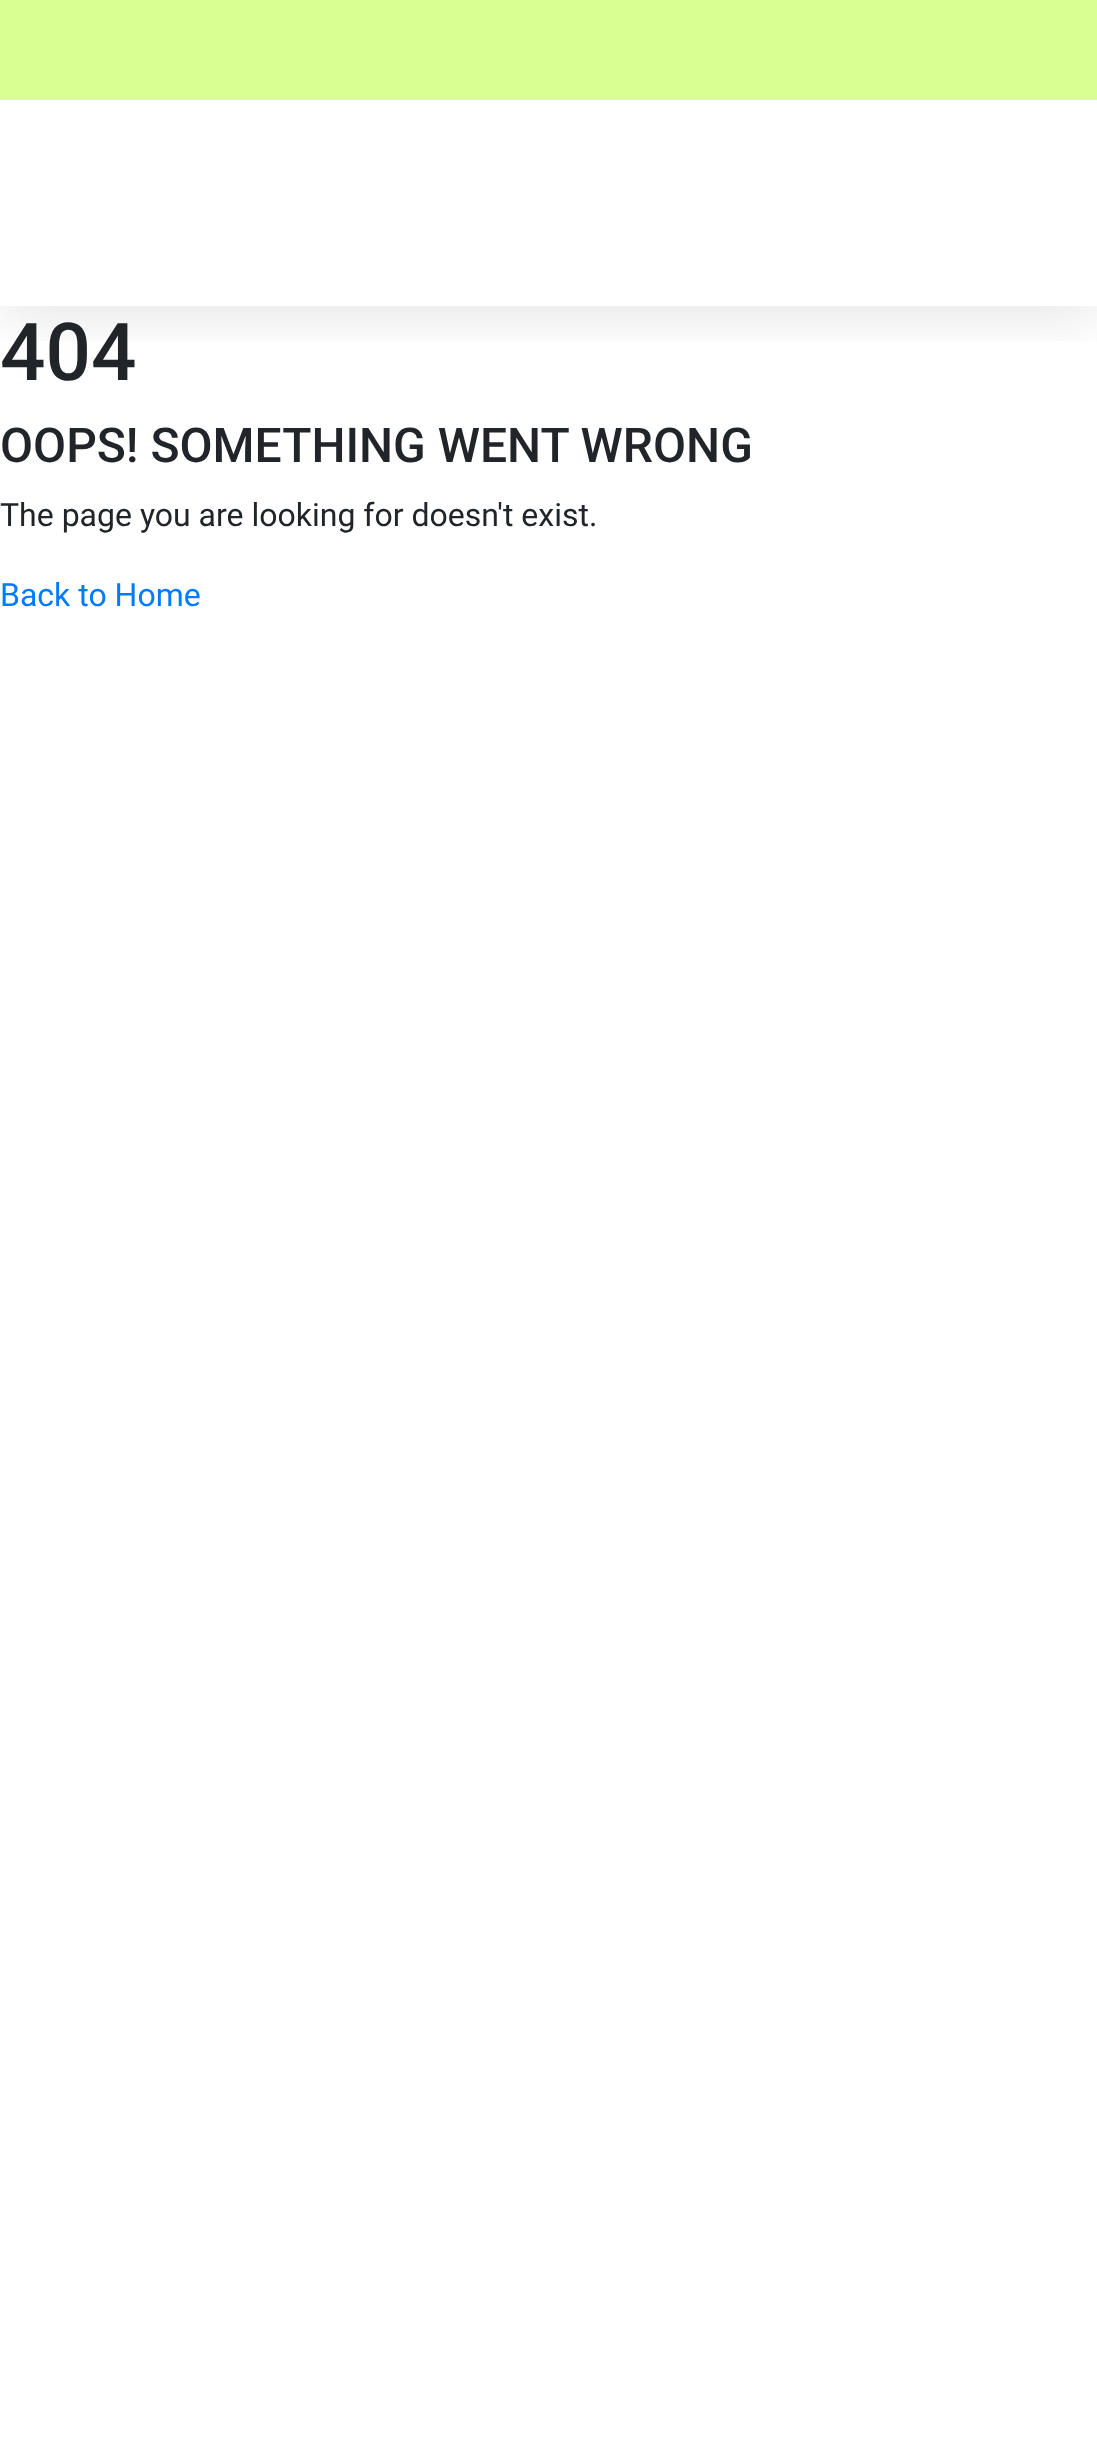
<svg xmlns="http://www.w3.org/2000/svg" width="1097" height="2438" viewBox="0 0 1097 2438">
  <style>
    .t1 { font: 500 80px Roboto; fill: #212529; }
    .t2 { font: 500 48px Roboto; fill: #212529; }
    .t3 { font: 32px Roboto; fill: #212529; }
    .t4 { font: 32px Roboto; fill: #007bff; }
  </style>
  <defs>
    <clipPath id="clip1"><rect x="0" y="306" width="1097" height="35"/></clipPath>
  </defs>
  <rect width="100%" height="100%" fill="#fff"/>
  <g clip-path="url(#clip1)">
    <rect x="0" y="10" width="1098" height="306" fill="#0000001a" filter="blur(30px)"/>
  </g>
  <rect x="0" y="0" width="1097" height="100" fill="#d9ff93"/>
  <text x="0" y="380" class="t1">404</text>
  <text x="0" y="462" class="t2">OOPS! SOMETHING WENT WRONG</text>
  <text x="0" y="526" class="t3">The page you are looking for doesn't exist.</text>
  <text x="0" y="606" class="t4">Back to Home</text>
</svg>
